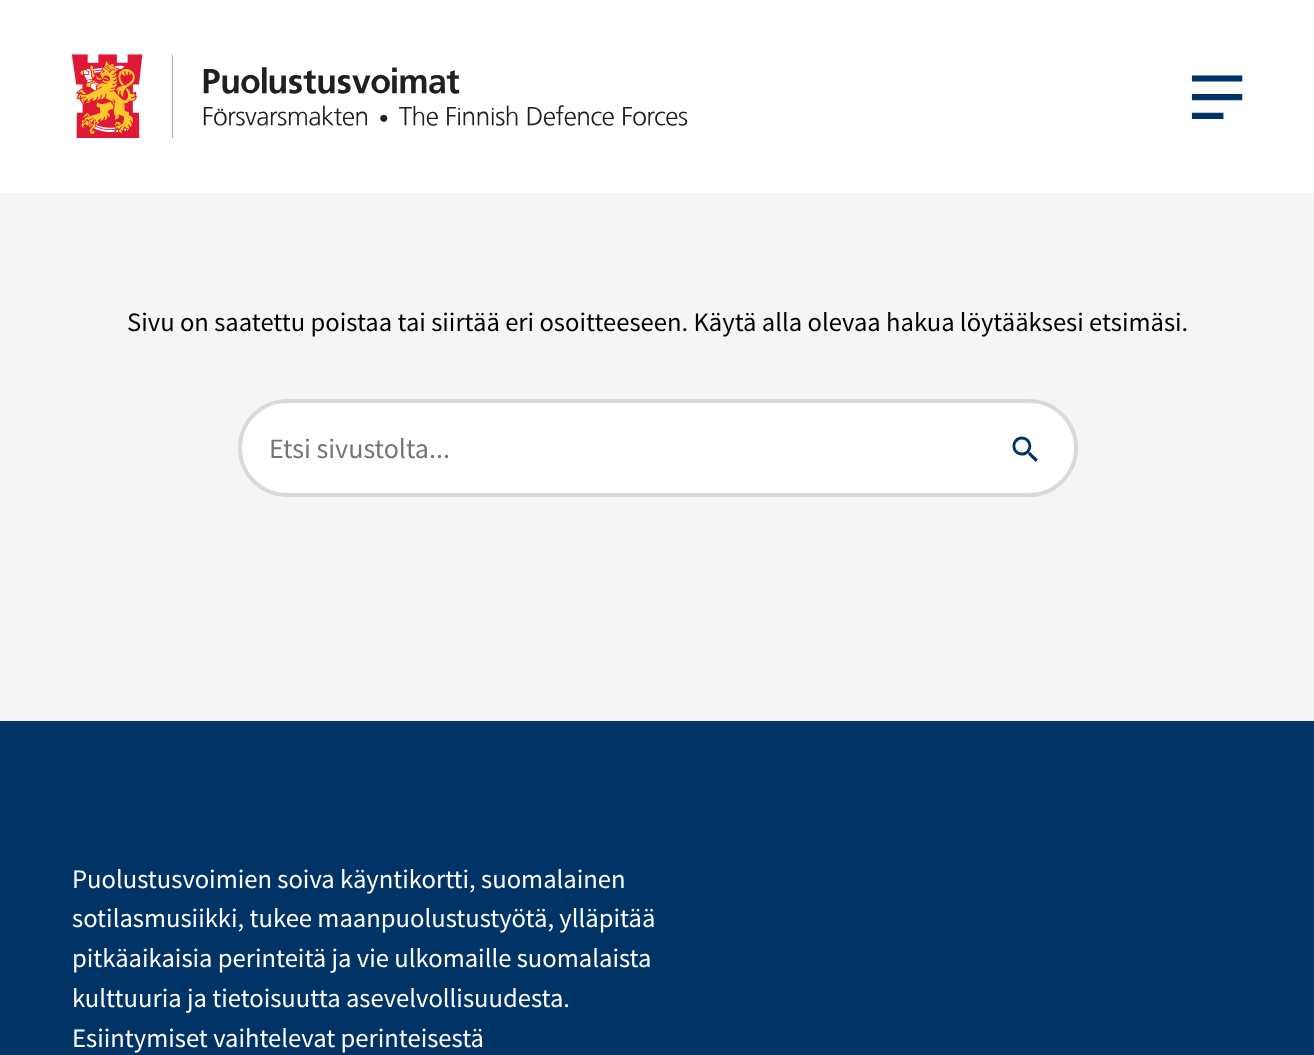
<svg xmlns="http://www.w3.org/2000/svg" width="1314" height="1055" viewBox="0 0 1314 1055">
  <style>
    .t1 { font: 26.6px Source Sans Pro; fill: #000; }
    .t2 { font: 28px Source Sans Pro; fill: #757575; }
    .t3 { font: 26.6px Source Sans Pro; fill: #fff; }
  </style>
  <rect width="100%" height="100%" fill="#fff"/>
  <image x="72" y="54" width="616" height="84" href="images/1.png"/>
  <image x="1191" y="75" width="52" height="44" href="images/2.png"/>
  <rect x="0" y="193" width="1314" height="528" fill="#f5f5f5"/>
  <text x="127" y="331" class="t1">Sivu on saatettu poistaa tai siirtää eri osoitteeseen. Käytä alla olevaa hakua löytääksesi etsimäsi.</text>
  <rect x="240" y="401" width="836" height="94" rx="47" fill="#fff" stroke="#d9d9d9" stroke-width="4"/>
  <text x="269" y="458" class="t2">Etsi sivustolta...</text>
  <image x="1012" y="436" width="26" height="26" href="images/3.png"/>
  <rect x="0" y="721" width="1314" height="334" fill="#036"/>
  <text x="72" y="888" class="t3">Puolustusvoimien soiva käyntikortti, suomalainen</text>
  <text x="72" y="927" class="t3">sotilasmusiikki, tukee maanpuolustustyötä, ylläpitää</text>
  <text x="72" y="967" class="t3">pitkäaikaisia perinteitä ja vie ulkomaille suomalaista</text>
  <text x="72" y="1007" class="t3">kulttuuria ja tietoisuutta asevelvollisuudesta.</text>
  <text x="72" y="1047" class="t3">Esiintymiset vaihtelevat perinteisestä</text>
</svg>
